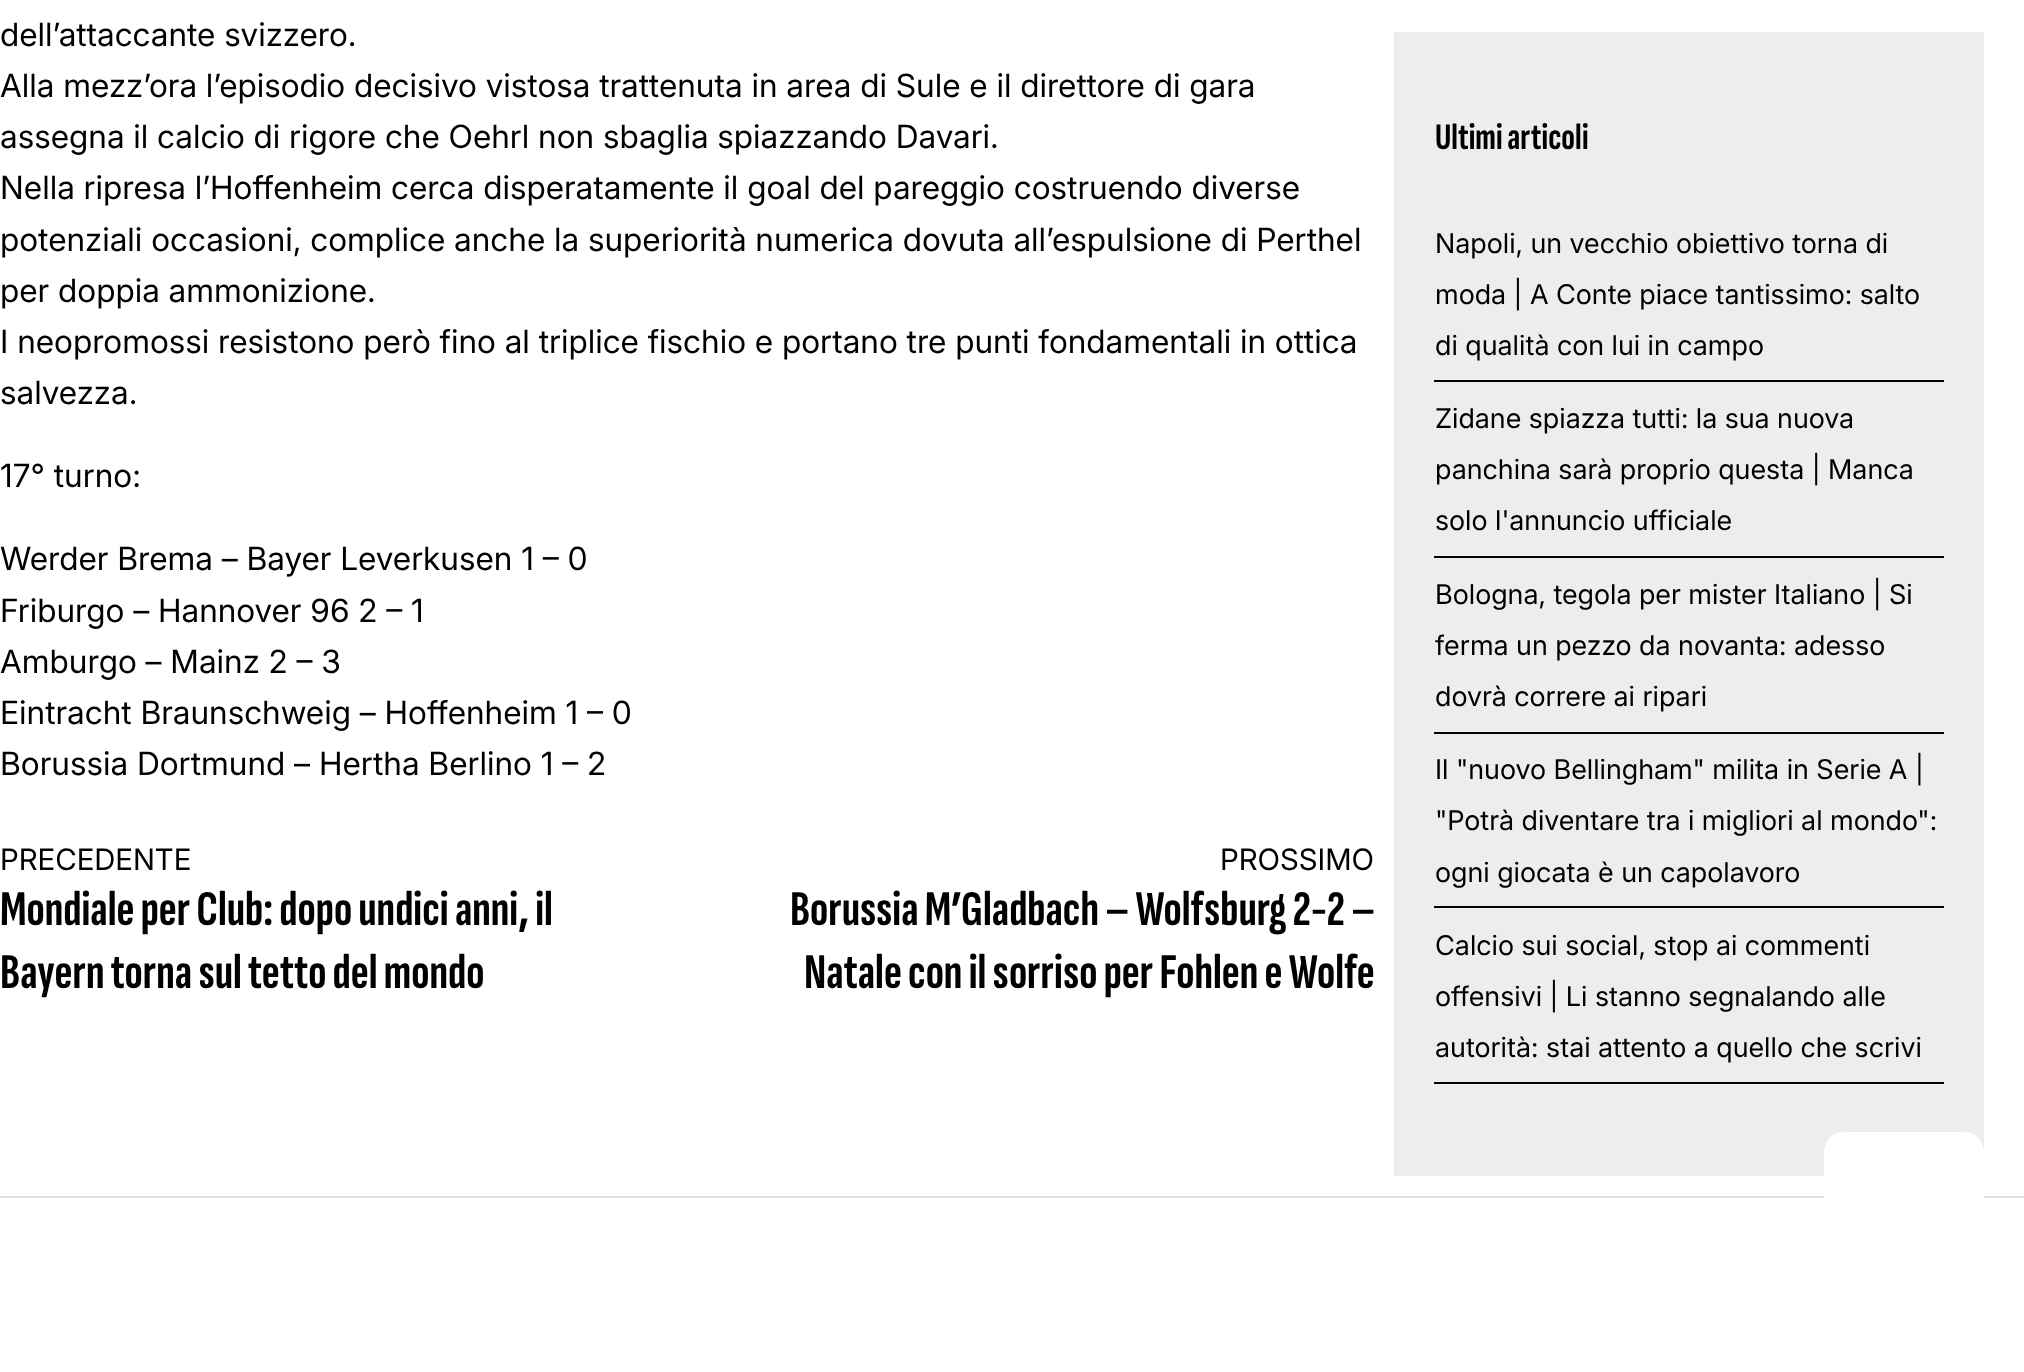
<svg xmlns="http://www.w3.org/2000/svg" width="2024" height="1372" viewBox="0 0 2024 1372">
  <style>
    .t1 { font: 32px Inter; fill: #000; }
    .t2 { font: 29.5px Inter; fill: #000; }
    .t3 { font: bold 50px Sofia Sans Extra Condensed; fill: #000; }
    .t4 { font: bold 37.5px Sofia Sans Extra Condensed; fill: #000; }
    .t5 { font: 27.25px Inter; fill: #000; }
  </style>
  <rect width="100%" height="100%" fill="#fff"/>
  <text x="0" y="46" class="t1">dell’attaccante svizzero.</text>
  <text x="0" y="97" class="t1">Alla mezz’ora l’episodio decisivo vistosa trattenuta in area di Sule e il direttore di gara</text>
  <text x="0" y="148" class="t1">assegna il calcio di rigore che Oehrl non sbaglia spiazzando Davari.</text>
  <text x="0" y="199" class="t1">Nella ripresa l’Hoffenheim cerca disperatamente il goal del pareggio costruendo diverse</text>
  <text x="0" y="251" class="t1">potenziali occasioni, complice anche la superiorità numerica dovuta all’espulsione di Perthel</text>
  <text x="0" y="302" class="t1">per doppia ammonizione.</text>
  <text x="0" y="353" class="t1">I neopromossi resistono però fino al triplice fischio e portano tre punti fondamentali in ottica</text>
  <text x="0" y="404" class="t1">salvezza.</text>
  <text x="0" y="487" class="t1">17° turno:</text>
  <text x="0" y="570" class="t1">Werder Brema – Bayer Leverkusen 1 – 0</text>
  <text x="0" y="622" class="t1">Friburgo – Hannover 96 2 – 1</text>
  <text x="0" y="673" class="t1">Amburgo – Mainz 2 – 3</text>
  <text x="0" y="724" class="t1">Eintracht Braunschweig – Hoffenheim 1 – 0</text>
  <text x="0" y="775" class="t1">Borussia Dortmund – Hertha Berlino 1 – 2</text>
  <text x="0" y="870" class="t2">PRECEDENTE</text>
  <text x="0" y="925" class="t3">Mondiale per Club: dopo undici anni, il</text>
  <text x="0" y="988" class="t3">Bayern torna sul tetto del mondo</text>
  <text x="1220" y="870" class="t2">PROSSIMO</text>
  <text x="790" y="925" class="t3">Borussia M’Gladbach – Wolfsburg 2-2 –</text>
  <text x="804" y="988" class="t3">Natale con il sorriso per Fohlen e Wolfe</text>
  <rect x="1394" y="32" width="590" height="1144" fill="#ededed"/>
  <text x="1435" y="149" class="t4">Ultimi articoli</text>
  <rect x="1434" y="380" width="510" height="2" fill="#000"/>
  <text x="1435" y="253" class="t5">Napoli, un vecchio obiettivo torna di</text>
  <text x="1435" y="304" class="t5">moda | A Conte piace tantissimo: salto</text>
  <text x="1435" y="355" class="t5">di qualità con lui in campo</text>
  <rect x="1434" y="556" width="510" height="2" fill="#000"/>
  <text x="1435" y="428" class="t5">Zidane spiazza tutti: la sua nuova</text>
  <text x="1435" y="479" class="t5">panchina sarà proprio questa | Manca</text>
  <text x="1435" y="530" class="t5">solo l'annuncio ufficiale</text>
  <rect x="1434" y="732" width="510" height="2" fill="#000"/>
  <text x="1435" y="604" class="t5">Bologna, tegola per mister Italiano | Si</text>
  <text x="1435" y="655" class="t5">ferma un pezzo da novanta: adesso</text>
  <text x="1435" y="706" class="t5">dovrà correre ai ripari</text>
  <rect x="1434" y="906" width="510" height="2" fill="#000"/>
  <text x="1435" y="779" class="t5">Il "nuovo Bellingham" milita in Serie A |</text>
  <text x="1435" y="830" class="t5">"Potrà diventare tra i migliori al mondo":</text>
  <text x="1435" y="882" class="t5">ogni giocata è un capolavoro</text>
  <rect x="1434" y="1082" width="510" height="2" fill="#000"/>
  <text x="1435" y="955" class="t5">Calcio sui social, stop ai commenti</text>
  <text x="1435" y="1006" class="t5">offensivi | Li stanno segnalando alle</text>
  <text x="1435" y="1057" class="t5">autorità: stai attento a quello che scrivi</text>
  <rect x="0" y="1196" width="2024" height="2" fill="#e0e0e0"/>
  <rect x="1824" y="1132" width="160" height="160" rx="20" fill="#fff"/>
</svg>
